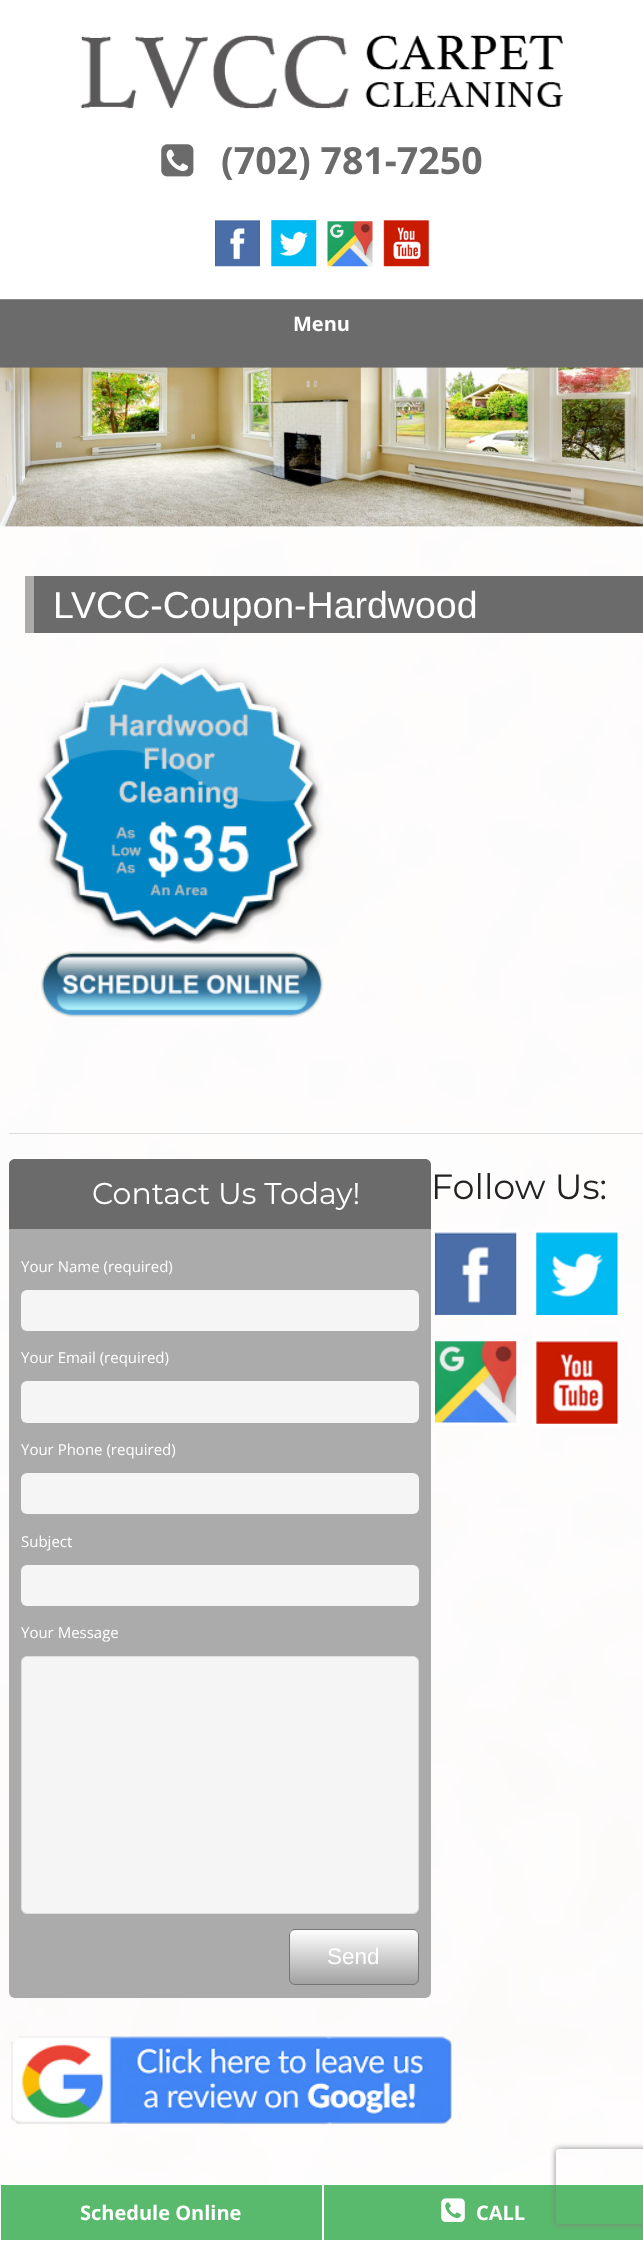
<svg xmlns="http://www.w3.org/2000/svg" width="643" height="2241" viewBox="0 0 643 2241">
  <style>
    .t1 { font: bold 37.5px Open Sans; fill: #6b6b6b; }
    .t2 { font: bold 20px Open Sans; fill: #fff; }
    .t3 { font: 37.5px Liberation Sans; fill: #fff; }
    .t4 { font: 30px Montserrat; fill: #fff; }
    .t5 { font: 15px Open Sans; fill: #fff; }
    .t6 { font: 22.5px Liberation Sans; fill: #fff; }
    .t7 { font: 35px Montserrat; fill: #222; }
  </style>
  <defs>
    <clipPath id="clip1"><rect x="289" y="1929" width="130" height="56" rx="6"/></clipPath>
    <linearGradient id="g1" gradientUnits="userSpaceOnUse" x1="354" y1="1930" x2="354" y2="1984"><stop offset="0" stop-color="#fff"/><stop offset="1" stop-color="#a1a1a1"/></linearGradient>
    <clipPath id="clip2"><path d="M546 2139H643V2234H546ZM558.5 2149H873.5C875 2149 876 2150 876 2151.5V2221.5C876 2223 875 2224 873.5 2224H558.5C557 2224 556 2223 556 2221.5V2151.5C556 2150 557 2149 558.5 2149Z" clip-rule="evenodd"/></clipPath>
  </defs>
  <rect width="100%" height="100%" fill="#fff"/>
  <image x="0" y="525" width="643" height="1659" href="images/1.png"/>
  <image x="80" y="35" width="483" height="74" href="images/2.png"/>
  <image x="161" y="144" width="33" height="33" href="images/3.png"/>
  <text x="221" y="174" class="t1">(702) 781-7250</text>
  <image x="215" y="220" width="45" height="47" href="images/4.png"/>
  <image x="271" y="220" width="46" height="47" href="images/5.png"/>
  <image x="327" y="221" width="46" height="46" href="images/6.png"/>
  <image x="383" y="220" width="46" height="47" href="images/7.png"/>
  <rect x="0" y="300" width="643" height="68" fill="#6b6b6b"/>
  <rect x="0" y="299" width="643" height="1" fill="#898989"/>
  <text x="293" y="331" class="t2">Menu</text>
  <rect x="0" y="526" width="643" height="1658" fill="#fffffff2"/>
  <image x="0" y="367" width="643" height="160" href="images/8.png"/>
  <rect x="34" y="576" width="609" height="57" fill="#6b6b6b"/>
  <rect x="25" y="576" width="9" height="57" fill="#ababab"/>
  <text x="53" y="618" class="t3">LVCC-Coupon-Hardwood</text>
  <image x="37" y="663" width="287" height="355" href="images/9.png"/>
  <rect x="9" y="1133" width="634" height="1" fill="#ddd"/>
  <rect x="9" y="1165" width="422" height="833" rx="6" fill="#ababab"/>
  <path d="M15 1159H425C428.5 1159 431 1161.5 431 1165V1229H9V1165C9 1161.5 11.5 1159 15 1159Z" fill="#6b6b6b"/>
  <text x="92" y="1204" class="t4">Contact Us Today!</text>
  <text x="21" y="1272" class="t5">Your Name (required)</text>
  <rect x="21" y="1290" width="398" height="41" rx="6" fill="#f5f5f5"/>
  <text x="21" y="1363" class="t5">Your Email (required)</text>
  <rect x="21" y="1381" width="398" height="42" rx="6" fill="#f5f5f5"/>
  <text x="21" y="1455" class="t5">Your Phone (required)</text>
  <rect x="21" y="1473" width="398" height="41" rx="6" fill="#f5f5f5"/>
  <text x="21" y="1547" class="t5">Subject</text>
  <rect x="21" y="1565" width="398" height="41" rx="6" fill="#f5f5f5"/>
  <text x="21" y="1638" class="t5">Your Message</text>
  <rect x="21.5" y="1656.5" width="397" height="257" rx="5.5" fill="#f5f5f5" stroke="#ddd"/>
  <g clip-path="url(#clip1)">
    <rect x="289" y="1930" width="130" height="54" fill="url(#g1)"/>
  </g>
  <rect x="289.5" y="1929.5" width="129" height="55" rx="5.5" fill="none" stroke="#757575"/>
  <text x="327" y="1964" class="t6">Send</text>
  <text x="431" y="1199" class="t7">Follow Us:</text>
  <rect x="433" y="1231" width="85" height="86" fill="none" stroke="#fff" stroke-width="4"/>
  <image x="435" y="1232" width="82" height="83" href="images/10.png"/>
  <rect x="535" y="1231" width="84" height="86" fill="none" stroke="#fff" stroke-width="4"/>
  <image x="536" y="1232" width="82" height="83" href="images/11.png"/>
  <rect x="433" y="1340" width="85" height="84" fill="none" stroke="#fff" stroke-width="4"/>
  <image x="435" y="1341" width="82" height="82" href="images/12.png"/>
  <rect x="535" y="1340" width="84" height="86" fill="none" stroke="#fff" stroke-width="4"/>
  <image x="536" y="1341" width="82" height="83" href="images/13.png"/>
  <image x="11" y="2036" width="441" height="89" href="images/14.png"/>
  <rect x="1" y="2185" width="321" height="55" fill="#59b96c"/>
  <text x="80" y="2220" class="t2">Schedule Online</text>
  <rect x="324" y="2185" width="319" height="55" fill="#59b96c"/>
  <image x="441" y="2198" width="24" height="24" href="images/15.png"/>
  <text x="476" y="2220" class="t2">CALL</text>
  <g clip-path="url(#clip2)">
    <rect x="556" y="2149" width="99" height="75" rx="2.5" fill="#808080" filter="blur(3px)"/>
  </g>
</svg>
